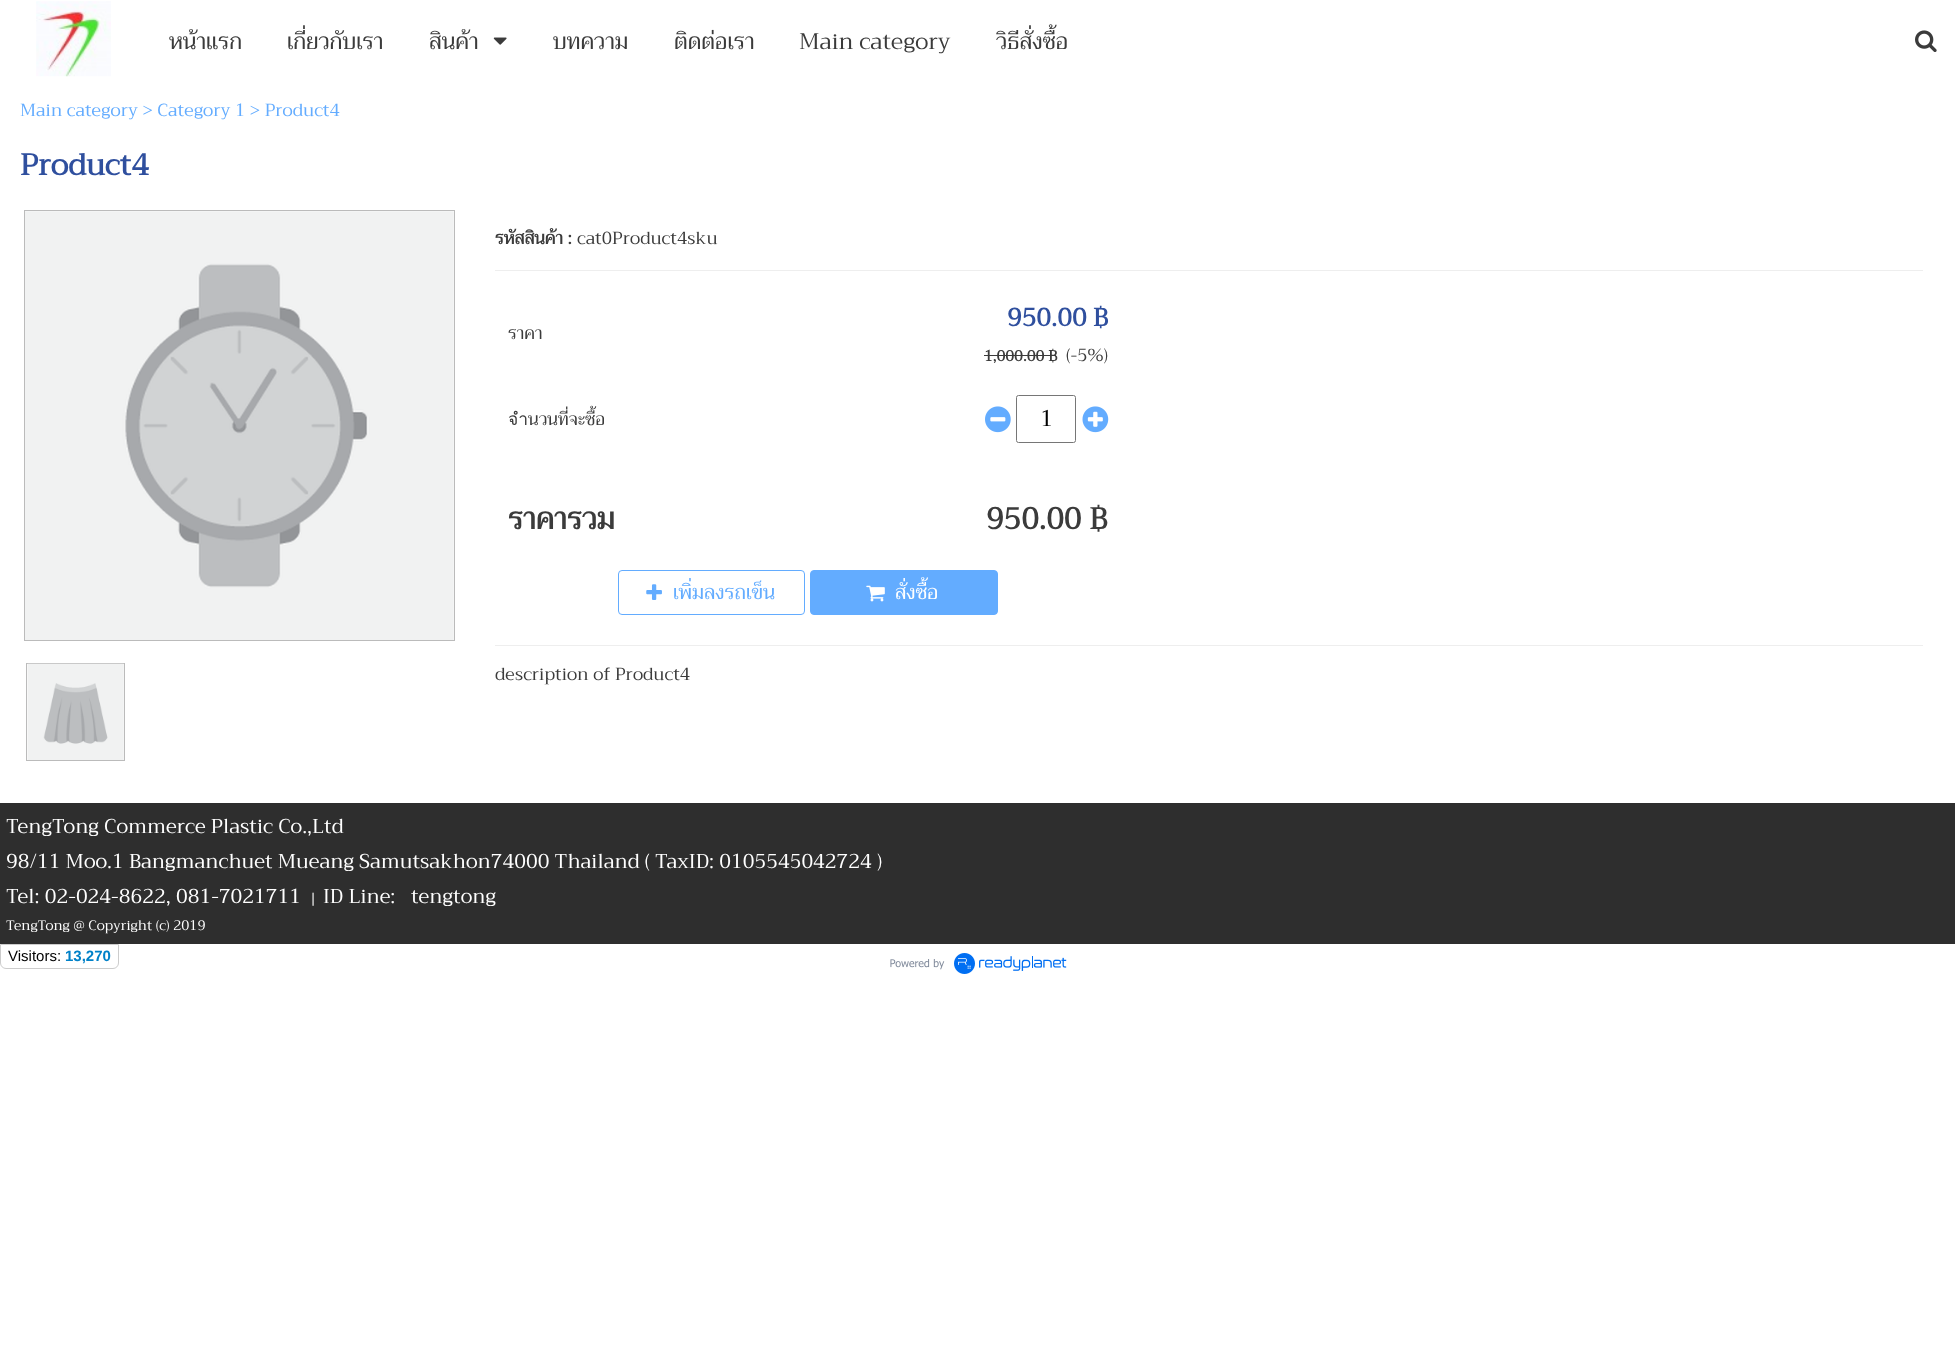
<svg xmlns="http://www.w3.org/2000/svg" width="1955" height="1364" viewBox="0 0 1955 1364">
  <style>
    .t1 { font: 22.5px Trirong; fill: #3b3b3b; }
    .t2 { font: 17.5px Trirong; fill: #63acff; }
    .t3 { font: bold 30px Trirong; fill: #2f4f9e; }
    .t4 { font: bold 17.5px Trirong; fill: #3b3b3b; }
    .t5 { font: 17.5px Trirong; fill: #3b3b3b; }
    .t6 { font: bold 25px Trirong; fill: #2f4f9e; }
    .t7 { font: bold 15px Trirong; fill: #3b3b3b; }
    .t8 { font: 22.5px Trirong; fill: #000; }
    .t9 { font: bold 30px Trirong; fill: #3b3b3b; }
    .t10 { font: 20px Trirong; fill: #63acff; }
    .t11 { font: 20px Trirong; fill: #fff; }
    .t12 { font: 13.75px Trirong; fill: #fff; }
    .t13 { font: 15px Liberation Sans; fill: #000; }
    .t14 { font: bold 15px Liberation Sans; fill: #0081c8; }
  </style>
  <rect width="100%" height="100%" fill="#fff"/>
  <image x="36" y="1" width="75" height="76" href="images/1.png"/>
  <text x="169" y="49" class="t1">หน้าแรก</text>
  <text x="287" y="49" class="t1">เกี่ยวกับเรา</text>
  <text x="429" y="49" class="t1">สินค้า</text>
  <image x="493" y="37" width="14" height="8" href="images/2.png"/>
  <text x="553" y="49" class="t1">บทความ</text>
  <text x="674" y="49" class="t1">ติดต่อเรา</text>
  <text x="799" y="49" class="t1">Main category</text>
  <text x="996" y="49" class="t1">วิธีสั่งซื้อ</text>
  <image x="1915" y="30" width="22" height="22" href="images/3.png"/>
  <text x="20" y="116" class="t2">Main category &gt; Category 1 &gt; Product4</text>
  <text x="20" y="175" class="t3">Product4</text>
  <rect x="24.5" y="210.5" width="430" height="430" fill="none" stroke="#bbb"/>
  <image x="25" y="211" width="429" height="429" href="images/4.png"/>
  <rect x="26.5" y="663.5" width="98" height="97" fill="none" stroke="#bbb"/>
  <image x="27" y="663" width="97" height="97" href="images/5.png"/>
  <text x="495" y="244" class="t4">รหัสสินค้า :</text>
  <text x="577" y="244" class="t5">cat0Product4sku</text>
  <rect x="495" y="270" width="1428" height="1" fill="#eee"/>
  <rect x="495" y="645" width="1428" height="1" fill="#eee"/>
  <text x="508" y="339" class="t5">ราคา</text>
  <text x="1007" y="326" class="t6">950.00 ฿</text>
  <text x="984" y="361" class="t7">1,000.00 ฿</text>
  <rect x="984" y="355" width="72" height="1" fill="#3b3b3b"/>
  <text x="1066" y="361" class="t5">(-5%)</text>
  <text x="508" y="425" class="t5">จำนวนที่จะซื้อ</text>
  <image x="985" y="406" width="26" height="27" href="images/6.png"/>
  <rect x="1016.5" y="395.5" width="59" height="47" rx="2" fill="none" stroke="#767676"/>
  <text x="1040" y="426" class="t8">1</text>
  <image x="1082" y="406" width="27" height="27" href="images/7.png"/>
  <text x="508" y="529" class="t9">ราคารวม</text>
  <text x="986" y="529" class="t9">950.00 ฿</text>
  <rect x="618.5" y="570.5" width="186" height="44" rx="3.5" fill="none" stroke="#63acff"/>
  <image x="646" y="584" width="16" height="16" href="images/8.png"/>
  <text x="673" y="599" class="t10">เพิ่มลงรถเข็น</text>
  <rect x="810.5" y="570.5" width="187" height="44" rx="3.5" fill="#63acff" stroke="#63acff"/>
  <image x="866" y="585" width="19" height="17" href="images/9.png"/>
  <text x="895" y="599" class="t11">สั่งซื้อ</text>
  <text x="495" y="680" class="t5">description of Product4</text>
  <rect x="0" y="803" width="1955" height="141" fill="#2e2e2e"/>
  <text x="6" y="833" class="t11">TengTong Commerce Plastic Co.,Ltd</text>
  <text x="6" y="868" class="t11">98/11 Moo.1 Bangmanchuet Mueang Samutsakhon74000 Thailand ( TaxID: 0105545042724 )</text>
  <text x="6" y="903" class="t11">Tel: 02-024-8622, 081-7021711</text>
  <text x="310" y="903" class="t12">|</text>
  <text x="323" y="903" class="t11" xml:space="preserve">ID Line:   tengtong</text>
  <text x="6" y="930" class="t12">TengTong @ Copyright (c) 2019</text>
  <path d="M.5 944.5H118.5V963C118.5 966 116 968.5 113 968.5H6C3 968.5 .5 966 .5 963Z" fill="none" stroke="#ccc"/>
  <text x="8" y="961" class="t13">Visitors:</text>
  <text x="65" y="961" class="t14">13,270</text>
  <image x="890" y="953" width="177" height="21" href="images/10.png"/>
</svg>
